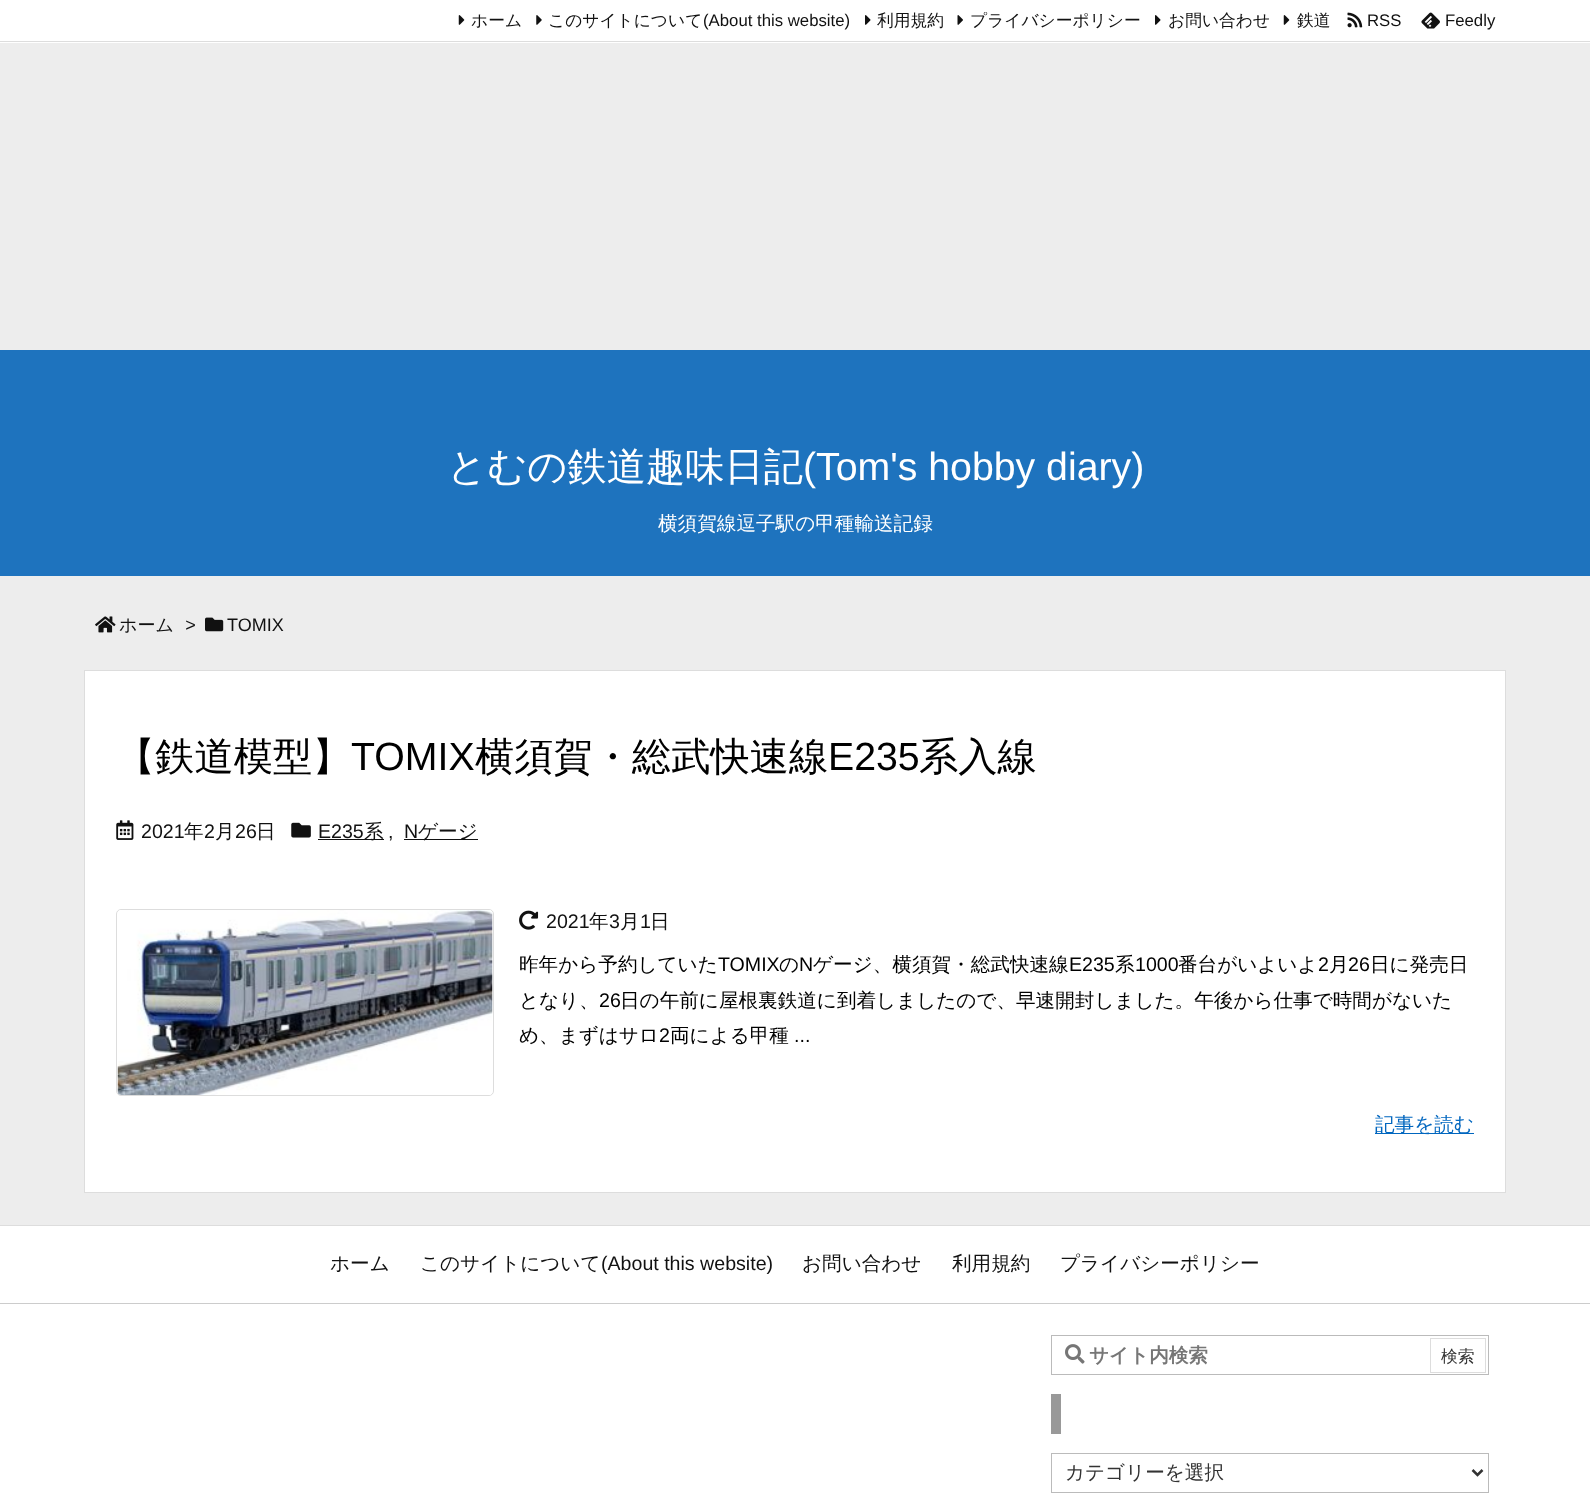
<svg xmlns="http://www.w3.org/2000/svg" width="1590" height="1507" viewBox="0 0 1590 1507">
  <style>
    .t1 { font: 500 16.75px WenQuanYi Zen Hei; fill: #111; }
    .t2 { font: 16.75px Liberation Sans; fill: #111; }
    .t3 { font: 500 39.25px WenQuanYi Zen Hei; fill: #fff; }
    .t4 { font: 39.25px Liberation Sans; fill: #fff; }
    .t5 { font: 500 19.6px WenQuanYi Zen Hei; fill: #fff; }
    .t6 { font: 500 18px WenQuanYi Zen Hei; fill: #111; }
    .t7 { font: italic 18px Liberation Sans; fill: #111; }
    .t8 { font: 18px Liberation Sans; fill: #111; }
    .t9 { font: 500 39.25px WenQuanYi Zen Hei; fill: #000; }
    .t10 { font: 39.25px Liberation Sans; fill: #000; }
    .t11 { font: 19.6px Liberation Sans; fill: #111; }
    .t12 { font: 500 19.6px WenQuanYi Zen Hei; fill: #111; }
    .t13 { font: 500 19.6px WenQuanYi Zen Hei; fill: #000; }
    .t14 { font: 19.6px Liberation Sans; fill: #000; }
    .t15 { font: 500 19.6px WenQuanYi Zen Hei; fill: #0066bf; }
    .t16 { font: bold 19.6px WenQuanYi Zen Hei; fill: #767676; }
    .t17 { font: 500 16.75px WenQuanYi Zen Hei; fill: #333; }
    .t18 { font: 500 19.6px WenQuanYi Zen Hei; fill: #333; }
  </style>
  <rect width="100%" height="100%" fill="#ededed"/>
  <rect x="0" y="0" width="1590" height="43" fill="#fff"/>
  <rect x="0" y="41" width="1590" height="1" fill="#ddd"/>
  <image x="458" y="15" width="7" height="10" href="images/1.png"/>
  <text x="471" y="26" class="t1">ホーム</text>
  <image x="536" y="15" width="6" height="10" href="images/2.png"/>
  <text x="548" y="26" class="t1">このサイトについて</text>
  <text x="703" y="26" class="t2">(About this website)</text>
  <image x="865" y="15" width="6" height="10" href="images/3.png"/>
  <text x="877" y="26" class="t1">利用規約</text>
  <image x="957" y="15" width="6" height="10" href="images/4.png"/>
  <text x="970" y="26" class="t1">プライバシーポリシー</text>
  <image x="1155" y="15" width="6" height="10" href="images/3.png"/>
  <text x="1168" y="26" class="t1">お問い合わせ</text>
  <image x="1283" y="15" width="7" height="10" href="images/1.png"/>
  <text x="1297" y="26" class="t1">鉄道</text>
  <image x="1347" y="12" width="16" height="16" href="images/5.png"/>
  <text x="1367" y="26" class="t2">RSS</text>
  <image x="1421" y="12" width="19" height="17" href="images/6.png"/>
  <text x="1445" y="26" class="t2">Feedly</text>
  <rect x="0" y="350" width="1590" height="226" fill="#1e73be"/>
  <text x="447" y="480" class="t3">とむの鉄道趣味日記</text>
  <text x="803" y="480" class="t4">(Tom's hobby diary)</text>
  <text x="658" y="530" class="t5">横須賀線逗子駅の甲種輸送記録</text>
  <image x="95" y="616" width="21" height="17" href="images/7.png"/>
  <text x="119" y="631" class="t6">ホーム</text>
  <text x="185" y="631" class="t7">&gt;</text>
  <image x="205" y="617" width="19" height="15" href="images/8.png"/>
  <text x="227" y="631" class="t8">TOMIX</text>
  <rect x="84.5" y="670.5" width="1421" height="522" fill="#fff" stroke="#ddd"/>
  <text x="116" y="770" class="t9">【鉄道模型】</text>
  <text x="351" y="770" class="t10">TOMIX</text>
  <text x="475" y="770" class="t9">横須賀・総武快速線</text>
  <text x="828" y="770" class="t10">E235</text>
  <text x="919" y="770" class="t9">系入線</text>
  <image x="116" y="820" width="18" height="20" href="images/9.png"/>
  <text x="141" y="838" class="t11">2021</text>
  <text x="184" y="838" class="t12">年</text>
  <text x="204" y="838" class="t11">2</text>
  <text x="215" y="838" class="t12">月</text>
  <text x="235" y="838" class="t11">26</text>
  <text x="256" y="838" class="t12">日</text>
  <image x="291" y="822" width="20" height="16" href="images/10.png"/>
  <text x="318" y="838" class="t11">E235</text>
  <rect x="318" y="839" width="66" height="1" fill="#111"/>
  <text x="364" y="838" class="t12">系</text>
  <text x="388" y="838" class="t11">,</text>
  <text x="404" y="838" class="t11">N</text>
  <rect x="404" y="839" width="74" height="1" fill="#111"/>
  <text x="418" y="838" class="t12">ゲージ</text>
  <rect x="116.5" y="909.5" width="377" height="186" rx="4.5" fill="none" stroke="#ddd"/>
  <image x="117" y="910" width="376" height="185" href="images/11.png"/>
  <image x="519" y="910" width="20" height="20" href="images/12.png"/>
  <text x="546" y="928" class="t11">2021</text>
  <text x="589" y="928" class="t12">年</text>
  <text x="609" y="928" class="t11">3</text>
  <text x="620" y="928" class="t12">月</text>
  <text x="640" y="928" class="t11">1</text>
  <text x="650" y="928" class="t12">日</text>
  <text x="519" y="971" class="t13">昨年から予約していた</text>
  <text x="718" y="971" class="t14">TOMIX</text>
  <text x="779" y="971" class="t13">の</text>
  <text x="799" y="971" class="t14">N</text>
  <text x="813" y="971" class="t13">ゲージ、横須賀・総武快速線</text>
  <text x="1069" y="971" class="t14">E235</text>
  <text x="1115" y="971" class="t13">系</text>
  <text x="1135" y="971" class="t14">1000</text>
  <text x="1178" y="971" class="t13">番台がいよいよ</text>
  <text x="1318" y="971" class="t14">2</text>
  <text x="1329" y="971" class="t13">月</text>
  <text x="1348" y="971" class="t14">26</text>
  <text x="1370" y="971" class="t13">日に発売日</text>
  <text x="519" y="1007" class="t13">となり、</text>
  <text x="599" y="1007" class="t14">26</text>
  <text x="620" y="1007" class="t13">日の午前に屋根裏鉄道に到着しましたので、早速開封しました。午後から仕事で時間がないた</text>
  <text x="519" y="1042" class="t13">め、まずはサロ</text>
  <text x="659" y="1042" class="t14">2</text>
  <text x="670" y="1042" class="t13">両による甲種</text>
  <text x="794" y="1042" class="t14">...</text>
  <rect x="1375" y="1133" width="99" height="1" fill="#0066bf"/>
  <text x="1375" y="1131" class="t15">記事を読む</text>
  <rect x="0" y="1226" width="1590" height="281" fill="#fff"/>
  <rect x="0" y="1225" width="1590" height="1" fill="#ddd"/>
  <rect x="0" y="1303" width="1590" height="1" fill="#ccc"/>
  <text x="330" y="1270" class="t12">ホーム</text>
  <text x="420" y="1270" class="t12">このサイトについて</text>
  <text x="601" y="1270" class="t11">(About this website)</text>
  <text x="802" y="1270" class="t12">お問い合わせ</text>
  <text x="952" y="1270" class="t12">利用規約</text>
  <text x="1060" y="1270" class="t12">プライバシーポリシー</text>
  <rect x="1051.5" y="1335.5" width="437" height="39" fill="none" stroke="#bbb"/>
  <image x="1065" y="1344" width="20" height="20" href="images/13.png"/>
  <text x="1089" y="1362" class="t16">サイト内検索</text>
  <rect x="1430.5" y="1338.5" width="55" height="34" fill="none" stroke="#ddd"/>
  <text x="1441" y="1362" class="t17">検索</text>
  <rect x="1051" y="1394" width="10" height="40" fill="#999"/>
  <rect x="1051.5" y="1453.5" width="437" height="39" fill="none" stroke="#bbb"/>
  <path d="M1472.5 1470L1477.5 1475L1482.5 1470" fill="none" stroke="#333" stroke-width="2.5"/>
  <text x="1065" y="1479" class="t18">カテゴリーを選択</text>
</svg>
